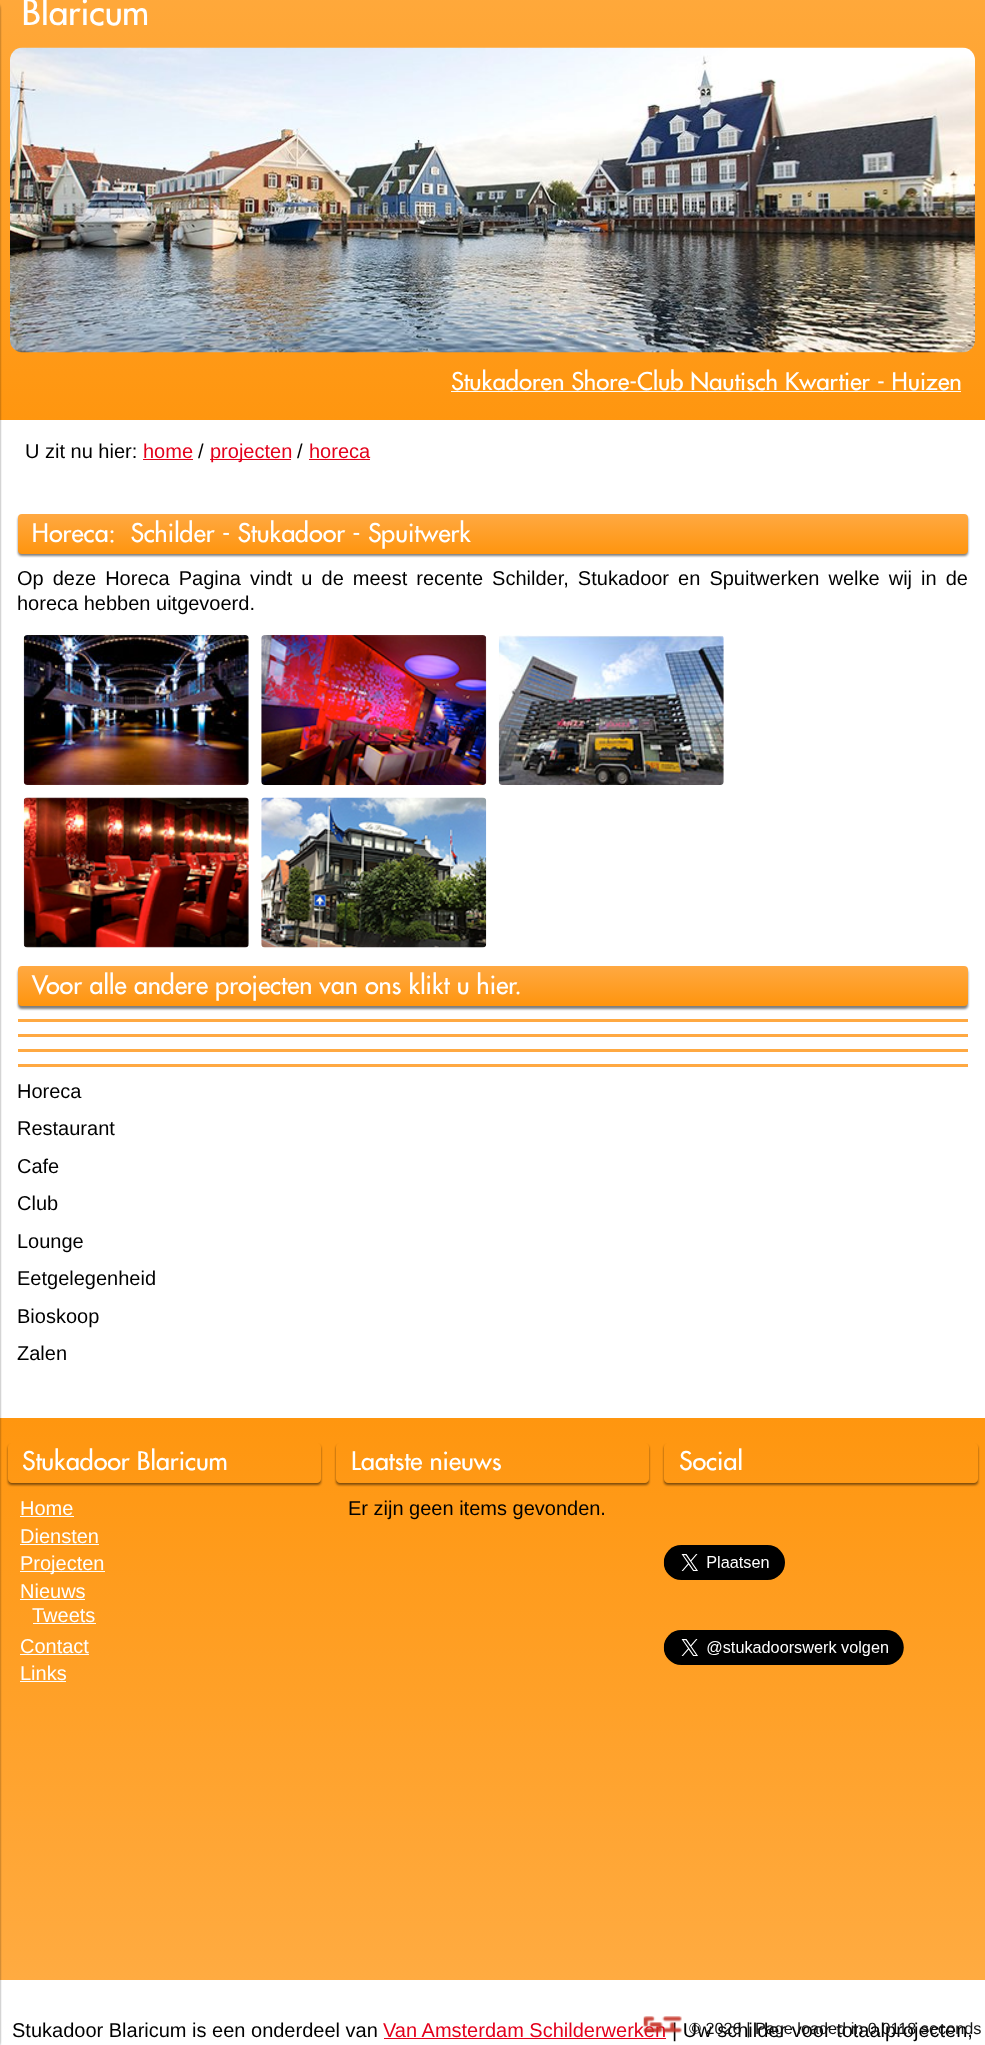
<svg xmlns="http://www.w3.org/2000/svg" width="985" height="2045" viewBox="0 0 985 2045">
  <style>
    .t1 { font: 100 35px 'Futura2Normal'; fill: #fff; }
    .t2 { font: 100 23.75px 'Futura2Normal'; fill: #fff; }
    .t3 { font: 20px Liberation Sans; fill: #000; }
    .t4 { font: 20px Liberation Sans; fill: #e3001b; }
    .t5 { font: 100 25px 'Futura2Normal'; fill: #fff; }
    .t6 { font: 20px Liberation Sans; fill: #fff; }
    .t7 { font: 16.25px Liberation Sans; fill: #131313; }
  </style>
  <defs>
    <linearGradient id="g1" gradientUnits="userSpaceOnUse" x1="493" y1="-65" x2="493" y2="420"><stop offset="0" stop-color="#ffab41"/><stop offset="1" stop-color="#ff960f"/></linearGradient>
    <linearGradient id="g2" gradientUnits="userSpaceOnUse" x1="493" y1="1418" x2="493" y2="1980"><stop offset="0" stop-color="#ff960f"/><stop offset="1" stop-color="#ffab41"/></linearGradient>
    <linearGradient id="g3" gradientUnits="userSpaceOnUse" x1="493" y1="514" x2="493" y2="554"><stop offset="0" stop-color="#ffa942"/><stop offset="1" stop-color="#ff950e"/></linearGradient>
    <linearGradient id="g4" gradientUnits="userSpaceOnUse" x1="493" y1="966" x2="493" y2="1006"><stop offset="0" stop-color="#ffa942"/><stop offset="1" stop-color="#ff950e"/></linearGradient>
    <clipPath id="clip1"><path d="M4 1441H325V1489H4ZM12 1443H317C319 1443 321 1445 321 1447V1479C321 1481 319 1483 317 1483H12C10 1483 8 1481 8 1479V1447C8 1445 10 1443 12 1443Z" clip-rule="evenodd"/></clipPath>
    <clipPath id="clip2"><path d="M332 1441H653V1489H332ZM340 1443H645C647 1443 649 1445 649 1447V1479C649 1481 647 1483 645 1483H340C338 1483 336 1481 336 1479V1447C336 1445 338 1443 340 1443Z" clip-rule="evenodd"/></clipPath>
    <clipPath id="clip3"><path d="M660 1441H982V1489H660ZM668 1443H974C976 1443 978 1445 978 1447V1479C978 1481 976 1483 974 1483H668C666 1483 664 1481 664 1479V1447C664 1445 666 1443 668 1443Z" clip-rule="evenodd"/></clipPath>
  </defs>
  <rect width="100%" height="100%" fill="#fff"/>
  <rect x="0" y="0" width="985" height="420" fill="url(#g1)"/>
  <rect x="0" y="1418" width="985" height="562" fill="url(#g2)"/>
  <rect x="-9" y="3" width="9" height="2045" rx="6" fill="#00000080" filter="blur(1px)"/>
  <text x="22" y="25" class="t1">Blaricum</text>
  <image x="10" y="47" width="965" height="306" href="images/1.png"/>
  <text x="451" y="390" class="t2">Stukadoren Shore-Club Nautisch Kwartier - Huizen</text>
  <rect x="451" y="391" width="510" height="1" fill="#fff"/>
  <text x="25" y="458" class="t3">U zit nu hier:</text>
  <text x="143" y="458" class="t4">home</text>
  <rect x="143" y="459" width="50" height="1" fill="#e3001b"/>
  <text x="198" y="458" class="t3">/</text>
  <rect x="210" y="459" width="81" height="1" fill="#e3001b"/>
  <text x="210" y="458" class="t4">projecten</text>
  <text x="297" y="458" class="t3">/</text>
  <text x="309" y="458" class="t4">horeca</text>
  <rect x="309" y="459" width="61" height="1" fill="#e3001b"/>
  <rect x="18" y="516" width="950" height="40" rx="4" fill="#00000080" filter="blur(1px)"/>
  <rect x="18" y="514" width="950" height="40" rx="4" fill="url(#g3)"/>
  <text x="32" y="542" class="t5" xml:space="preserve">Horeca:  Schilder - Stukadoor - Spuitwerk</text>
  <text x="17" y="585" word-spacing="3.5" class="t3">Op deze Horeca Pagina vindt u de meest recente Schilder, Stukadoor en Spuitwerken welke wij in de</text>
  <text x="17" y="610" class="t3">horeca hebben uitgevoerd.</text>
  <image x="23" y="635" width="226" height="150" href="images/2.png"/>
  <image x="261" y="635" width="226" height="150" href="images/3.png"/>
  <image x="498" y="635" width="226" height="150" href="images/4.png"/>
  <image x="23" y="797" width="226" height="151" href="images/5.png"/>
  <image x="261" y="797" width="226" height="151" href="images/6.png"/>
  <rect x="18" y="969" width="950" height="40" rx="4" fill="#00000080" filter="blur(1px)"/>
  <rect x="18" y="966" width="950" height="40" rx="4" fill="url(#g4)"/>
  <text x="32" y="994" class="t5">Voor alle andere projecten van ons klikt u hier.</text>
  <rect x="18" y="1019" width="950" height="3" fill="#ffa942"/>
  <rect x="18" y="1034" width="950" height="3" fill="#ffa942"/>
  <rect x="18" y="1049" width="950" height="3" fill="#ffa942"/>
  <rect x="18" y="1064" width="950" height="3" fill="#ffa942"/>
  <text x="17" y="1098" class="t3">Horeca</text>
  <text x="17" y="1135" class="t3">Restaurant</text>
  <text x="17" y="1173" class="t3">Cafe</text>
  <text x="17" y="1210" class="t3">Club</text>
  <text x="17" y="1248" class="t3">Lounge</text>
  <text x="17" y="1285" class="t3">Eetgelegenheid</text>
  <text x="17" y="1323" class="t3">Bioskoop</text>
  <text x="17" y="1360" class="t3">Zalen</text>
  <g clip-path="url(#clip1)">
    <rect x="8" y="1445" width="313" height="40" rx="4" fill="#00000080" filter="blur(1px)"/>
  </g>
  <text x="22" y="1470" class="t5">Stukadoor Blaricum</text>
  <text x="20" y="1515" class="t6">Home</text>
  <rect x="20" y="1516" width="54" height="1" fill="#fff"/>
  <text x="20" y="1543" class="t6">Diensten</text>
  <rect x="20" y="1544" width="79" height="1" fill="#fff"/>
  <rect x="20" y="1571" width="85" height="1" fill="#fff"/>
  <text x="20" y="1570" class="t6">Projecten</text>
  <text x="20" y="1598" class="t6">Nieuws</text>
  <rect x="20" y="1599" width="65" height="1" fill="#fff"/>
  <text x="32" y="1622" class="t6">Tweets</text>
  <rect x="33" y="1623" width="63" height="1" fill="#fff"/>
  <text x="20" y="1653" class="t6">Contact</text>
  <rect x="20" y="1654" width="69" height="1" fill="#fff"/>
  <text x="20" y="1680" class="t6">Links</text>
  <rect x="20" y="1681" width="46" height="1" fill="#fff"/>
  <g clip-path="url(#clip2)">
    <rect x="336" y="1445" width="313" height="40" rx="4" fill="#00000080" filter="blur(1px)"/>
  </g>
  <text x="351" y="1470" class="t5">Laatste nieuws</text>
  <text x="348" y="1515" class="t3">Er zijn geen items gevonden.</text>
  <g clip-path="url(#clip3)">
    <rect x="664" y="1445" width="314" height="40" rx="4" fill="#00000080" filter="blur(1px)"/>
  </g>
  <text x="679" y="1470" class="t5">Social</text>
  <image x="663" y="1545" width="122" height="35" href="images/7.png"/>
  <image x="663" y="1630" width="241" height="35" href="images/8.png"/>
  <text x="12" y="2037" class="t3">Stukadoor Blaricum is een onderdeel van</text>
  <text x="383" y="2037" class="t4">Van Amsterdam Schilderwerken</text>
  <rect x="384" y="2038" width="282" height="1" fill="#e3001b"/>
  <text x="672" y="2037" class="t3">| Uw schilder voor totaalprojecten,</text>
  <image x="643" y="2016" width="39" height="18" href="images/9.png"/>
  <text x="689" y="2034" class="t7">© 2026 | Page loaded in 0,0118 seconds</text>
</svg>
